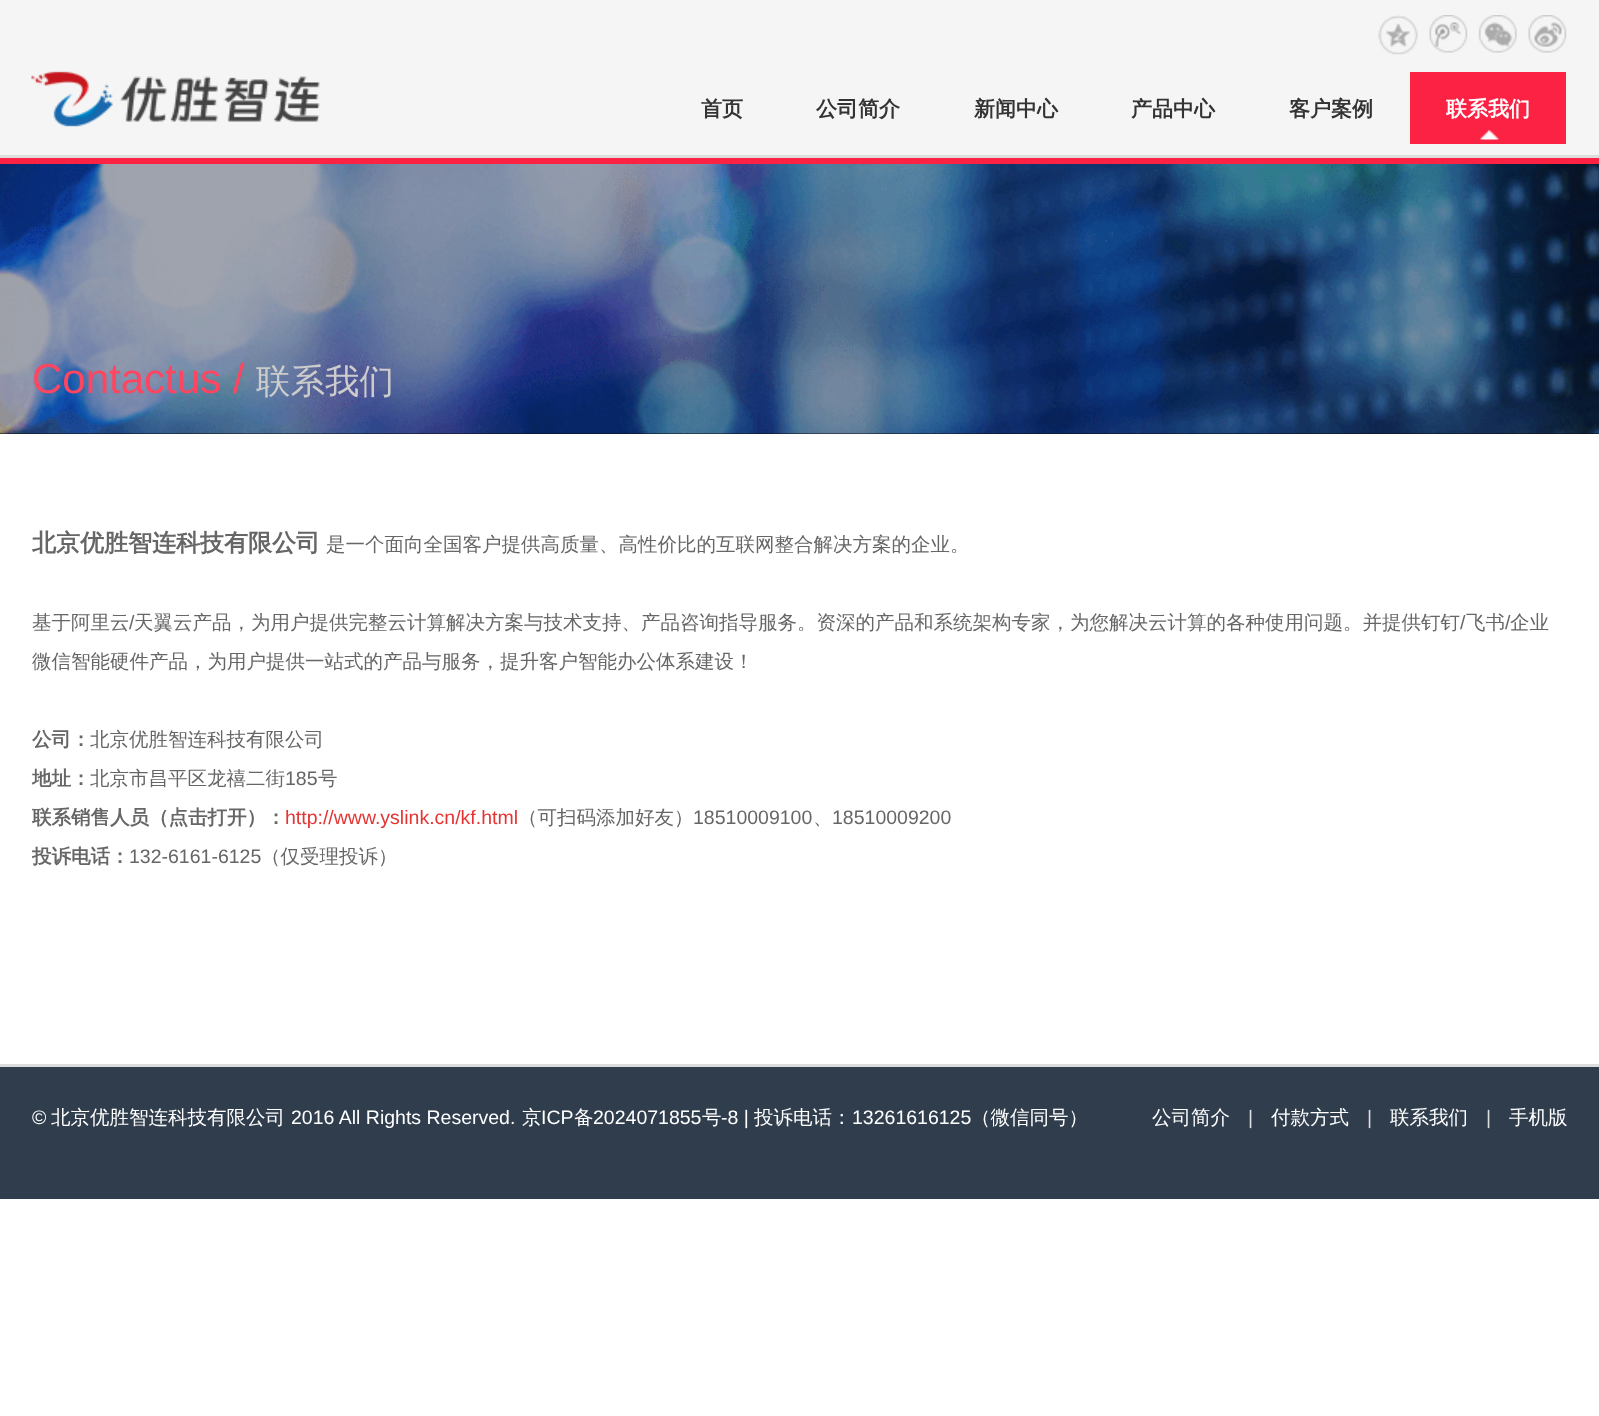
<svg xmlns="http://www.w3.org/2000/svg" width="1599" height="1416" viewBox="0 0 1599 1416">
  <style>
    .t1 { font: bold 21px WenQuanYi Zen Hei; fill: #333; }
    .t2 { font: bold 21px WenQuanYi Zen Hei; fill: #fff; }
    .t3 { font: 42px Liberation Sans; fill: #ff4560; }
    .t4 { font: 500 34.5px WenQuanYi Zen Hei; fill: #ccc; }
    .t5 { font: bold 24px WenQuanYi Zen Hei; fill: #666; }
    .t6 { font: 500 19.5px WenQuanYi Zen Hei; fill: #666; }
    .t7 { font: 19.5px Liberation Sans; fill: #666; }
    .t8 { font: bold 19.5px WenQuanYi Zen Hei; fill: #666; }
    .t9 { font: 19.5px Liberation Sans; fill: #e53333; }
    .t10 { font: 19.5px Liberation Sans; fill: #fff; }
    .t11 { font: 500 19.5px WenQuanYi Zen Hei; fill: #fff; }
    .t12 { font: 19.5px Liberation Sans; fill: #ddd; }
  </style>
  <rect width="100%" height="100%" fill="#fff"/>
  <rect x="0" y="0" width="1599" height="155" fill="#f5f5f5"/>
  <image x="1378" y="15" width="40" height="40" href="images/1.png"/>
  <image x="1429" y="15" width="39" height="38" href="images/2.png"/>
  <image x="1478" y="15" width="39" height="38" href="images/3.png"/>
  <image x="1528" y="15" width="39" height="38" href="images/4.png"/>
  <rect x="0" y="158" width="1599" height="6" fill="#fb2243"/>
  <rect x="0" y="155" width="1599" height="3" fill="#ddd"/>
  <image x="31" y="71" width="289" height="56" href="images/5.png"/>
  <text x="701" y="116" class="t1">首页</text>
  <text x="816" y="116" class="t1">公司简介</text>
  <text x="974" y="116" class="t1">新闻中心</text>
  <text x="1131" y="116" class="t1">产品中心</text>
  <text x="1289" y="116" class="t1">客户案例</text>
  <rect x="1410" y="72" width="156" height="72" fill="#fb2243"/>
  <image x="1480" y="130" width="19" height="10" href="images/6.png"/>
  <text x="1446" y="116" class="t2">联系我们</text>
  <rect x="0" y="433" width="1599" height="1" fill="#101010"/>
  <image x="0" y="164" width="1599" height="270" href="images/7.png"/>
  <text x="32" y="393" class="t3">Contactus /</text>
  <text x="256" y="393" class="t4">联系我们</text>
  <text x="32" y="551" class="t5">北京优胜智连科技有限公司</text>
  <text x="326" y="551" class="t6">是一个面向全国客户提供高质量、高性价比的互联网整合解决方案的企业。</text>
  <text x="32" y="629" class="t6">基于阿里云</text>
  <text x="129" y="629" class="t7">/</text>
  <text x="134" y="629" class="t6">天翼云产品，为用户提供完整云计算解决方案与技术支持、产品咨询指导服务。资深的产品和系统架构专家，为您解决云计算的各种使用问题。并提供钉钉</text>
  <text x="1460" y="629" class="t7">/</text>
  <text x="1466" y="629" class="t6">飞书</text>
  <text x="1505" y="629" class="t7">/</text>
  <text x="1510" y="629" class="t6">企业</text>
  <text x="32" y="668" class="t6">微信智能硬件产品，为用户提供一站式的产品与服务，提升客户智能办公体系建设！</text>
  <text x="32" y="746" class="t8">公司：</text>
  <text x="90" y="746" class="t6">北京优胜智连科技有限公司</text>
  <text x="32" y="785" class="t8">地址：</text>
  <text x="90" y="785" class="t6">北京市昌平区龙禧二街</text>
  <text x="285" y="785" class="t7">185</text>
  <text x="318" y="785" class="t6">号</text>
  <text x="32" y="824" class="t8">联系销售人员（点击打开）：</text>
  <text x="285" y="824" class="t9">http://www.yslink.cn/kf.html</text>
  <text x="518" y="824" class="t6">（可扫码添加好友）</text>
  <text x="693" y="824" class="t7">18510009100</text>
  <text x="813" y="824" class="t6">、</text>
  <text x="832" y="824" class="t7">18510009200</text>
  <text x="32" y="863" class="t8">投诉电话：</text>
  <text x="129" y="863" class="t7">132-6161-6125</text>
  <text x="261" y="863" class="t6">（仅受理投诉）</text>
  <rect x="0" y="1067" width="1599" height="132" fill="#303d4d"/>
  <rect x="0" y="1064" width="1599" height="3" fill="#ddd"/>
  <text x="32" y="1124" class="t10">©</text>
  <text x="51" y="1124" class="t11">北京优胜智连科技有限公司</text>
  <text x="291" y="1124" class="t10">2016 All Rights Reserved.</text>
  <text x="522" y="1124" class="t11">京</text>
  <text x="541" y="1124" class="t10">ICP</text>
  <text x="574" y="1124" class="t11">备</text>
  <text x="593" y="1124" class="t10">2024071855</text>
  <text x="702" y="1124" class="t11">号</text>
  <text x="721" y="1124" class="t10">-8 |</text>
  <text x="754" y="1124" class="t11">投诉电话：</text>
  <text x="852" y="1124" class="t10">13261616125</text>
  <text x="971" y="1124" class="t11">（微信同号）</text>
  <text x="1152" y="1124" class="t11">公司简介</text>
  <text x="1248" y="1124" class="t12">|</text>
  <text x="1271" y="1124" class="t11">付款方式</text>
  <text x="1367" y="1124" class="t12">|</text>
  <text x="1390" y="1124" class="t11">联系我们</text>
  <text x="1486" y="1124" class="t12">|</text>
  <text x="1509" y="1124" class="t11">手机版</text>
</svg>
